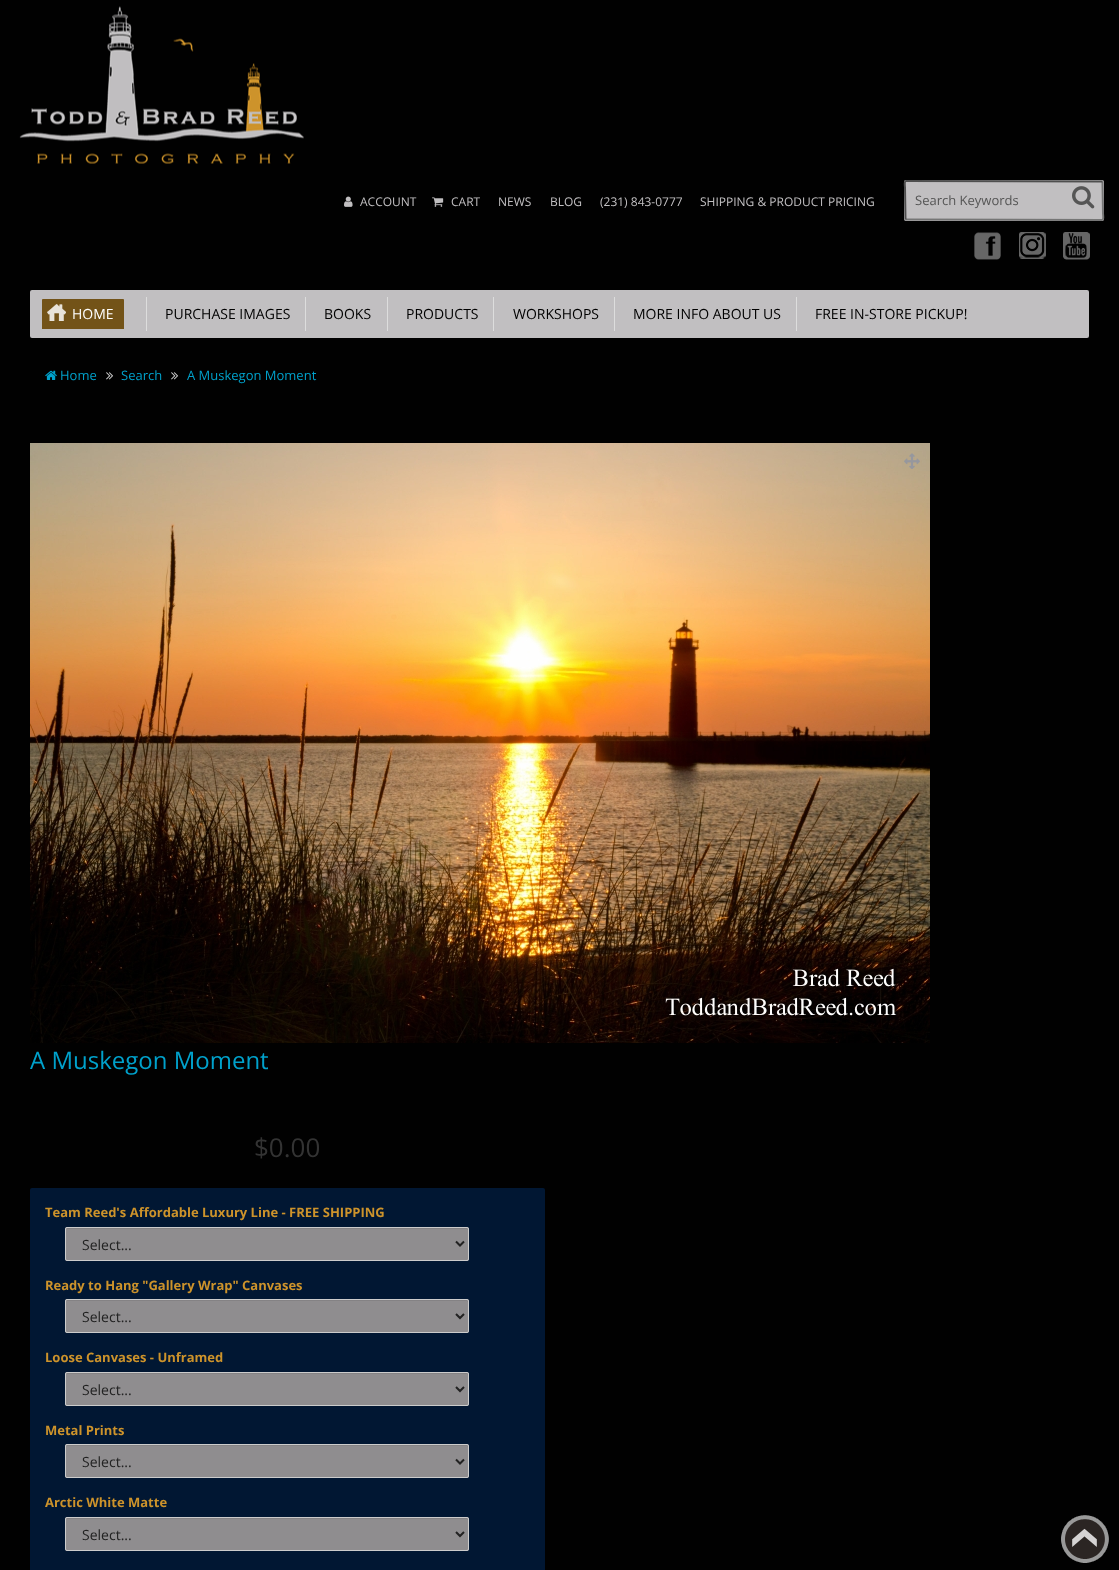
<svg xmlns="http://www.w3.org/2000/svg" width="1119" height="1570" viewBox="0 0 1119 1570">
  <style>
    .t1 { font: 12px Open Sans; fill: #c1bfc1; }
    .t2 { font: 13px Open Sans; fill: #555; }
    .t3 { font: 14px Open Sans; fill: #fff; }
    .t4 { font: 14px Open Sans; fill: #010101; }
    .t5 { font: 13px Open Sans; fill: #00a1cb; }
    .t6 { font: 24px Open Sans; fill: #00a1cb; }
    .t7 { font: 26px Open Sans; fill: #333; }
    .t8 { font: bold 13px Open Sans; fill: #cd932b; }
    .t9 { font: 14px Open Sans; fill: #222; }
  </style>
  <rect width="100%" height="100%" fill="#010101"/>
  <image x="19" y="6" width="285" height="158" href="images/1.png"/>
  <image x="344" y="196" width="9" height="11" href="images/2.png"/>
  <text x="360" y="206" class="t1">ACCOUNT</text>
  <image x="432" y="197" width="12" height="10" href="images/3.png"/>
  <text x="451" y="206" class="t1">CART</text>
  <text x="498" y="206" class="t1">NEWS</text>
  <text x="550" y="206" class="t1">BLOG</text>
  <text x="600" y="206" class="t1">(231) 843-0777</text>
  <text x="700" y="206" class="t1">SHIPPING &amp; PRODUCT PRICING</text>
  <rect x="904" y="180" width="200" height="41" rx="2" fill="#c1bfc1"/>
  <path d="M1102.5 181.5L1103 213C1103 215 1104 220 1102 220L905.5 219.5" fill="none" stroke="#767676" stroke-width="2"/>
  <path d="M905.5 219.5L905 188C905 186 904 181 906 181L1102.5 181.5" fill="none" stroke="#4f4f4f" stroke-width="2"/>
  <text x="915" y="205" class="t2">Search Keywords</text>
  <image x="1072" y="186" width="23" height="23" href="images/4.png"/>
  <image x="974" y="232" width="27" height="28" href="images/5.png"/>
  <image x="1019" y="232" width="27" height="27" href="images/6.png"/>
  <image x="1063" y="232" width="27" height="28" href="images/7.png"/>
  <rect x="30" y="290" width="1059" height="48" rx="2" fill="#c1bfc1"/>
  <rect x="146" y="297" width="1" height="34" fill="#ddd"/>
  <path d="M43 299H123C123.5 299 124 299.5 124 300V329H42V300C42 299.5 42.5 299 43 299Z" fill="#735318"/>
  <image x="47" y="304" width="19" height="17" href="images/8.png"/>
  <text x="72" y="319" class="t3">HOME</text>
  <rect x="305" y="297" width="1" height="34" fill="#ddd"/>
  <text x="165" y="319" class="t4">PURCHASE IMAGES</text>
  <rect x="387" y="297" width="1" height="34" fill="#ddd"/>
  <text x="324" y="319" class="t4">BOOKS</text>
  <rect x="493" y="297" width="1" height="34" fill="#ddd"/>
  <text x="406" y="319" class="t4">PRODUCTS</text>
  <rect x="614" y="297" width="1" height="34" fill="#ddd"/>
  <text x="513" y="319" class="t4">WORKSHOPS</text>
  <rect x="796" y="297" width="1" height="34" fill="#ddd"/>
  <text x="633" y="319" class="t4">MORE INFO ABOUT US</text>
  <text x="815" y="319" class="t4">FREE IN-STORE PICKUP!</text>
  <image x="45" y="370" width="12" height="10" href="images/9.png"/>
  <text x="60" y="380" class="t5">Home</text>
  <image x="106" y="372" width="8" height="8" href="images/10.png"/>
  <text x="121" y="380" class="t5">Search</text>
  <image x="171" y="372" width="8" height="8" href="images/10.png"/>
  <text x="187" y="380" class="t5">A Muskegon Moment</text>
  <image x="30" y="443" width="900" height="600" href="images/11.png"/>
  <image x="904" y="453" width="16" height="16" href="images/12.png"/>
  <text x="30" y="1069" class="t6">A Muskegon Moment</text>
  <text x="254" y="1157" class="t7">$0.00</text>
  <rect x="30" y="1188" width="515" height="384" rx="2" fill="#011733"/>
  <text x="45" y="1217" class="t8">Team Reed's Affordable Luxury Line - FREE SHIPPING</text>
  <rect x="65" y="1227" width="404" height="34" rx="2" fill="#8f8d8f"/>
  <path d="M67 1228L66 1229H467L468 1230C468 1229 468 1228 467 1228Z" fill="#848284"/>
  <rect x="65.5" y="1227.5" width="403" height="33" rx="1.5" fill="none" stroke="#ccc"/>
  <path d="M456 1241.5L460 1245.5L464 1241.5" fill="none" stroke="#222" stroke-width="2"/>
  <text x="82" y="1250" class="t9">Select...</text>
  <text x="45" y="1290" class="t8">Ready to Hang "Gallery Wrap" Canvases</text>
  <rect x="65" y="1299" width="404" height="34" rx="2" fill="#8f8d8f"/>
  <path d="M67 1300L66 1301H467L468 1302C468 1301 468 1300 467 1300Z" fill="#848284"/>
  <rect x="65.5" y="1299.5" width="403" height="33" rx="1.5" fill="none" stroke="#ccc"/>
  <path d="M456 1314L460 1318L464 1314" fill="none" stroke="#222" stroke-width="2"/>
  <text x="82" y="1322" class="t9">Select...</text>
  <text x="45" y="1362" class="t8">Loose Canvases - Unframed</text>
  <rect x="65" y="1372" width="404" height="34" rx="2" fill="#8f8d8f"/>
  <path d="M67 1373L66 1374H467L468 1375C468 1374 468 1373 467 1373Z" fill="#848284"/>
  <rect x="65.5" y="1372.5" width="403" height="33" rx="1.5" fill="none" stroke="#ccc"/>
  <path d="M456 1387L460 1391L464 1387" fill="none" stroke="#222" stroke-width="2"/>
  <text x="82" y="1395" class="t9">Select...</text>
  <text x="45" y="1435" class="t8">Metal Prints</text>
  <rect x="65" y="1444" width="404" height="34" rx="2" fill="#8f8d8f"/>
  <path d="M67 1445L66 1446H467L468 1447C468 1446 468 1445 467 1445Z" fill="#848284"/>
  <rect x="65.5" y="1444.5" width="403" height="33" rx="1.5" fill="none" stroke="#ccc"/>
  <path d="M456 1459.5L460 1463.5L464 1459.5" fill="none" stroke="#222" stroke-width="2"/>
  <text x="82" y="1467" class="t9">Select...</text>
  <text x="45" y="1507" class="t8">Arctic White Matte</text>
  <rect x="65" y="1517" width="404" height="34" rx="2" fill="#8f8d8f"/>
  <path d="M67 1518L66 1519H467L468 1520C468 1519 468 1518 467 1518Z" fill="#848284"/>
  <rect x="65.5" y="1517.5" width="403" height="33" rx="1.5" fill="none" stroke="#ccc"/>
  <path d="M456 1532L460 1536L464 1532" fill="none" stroke="#222" stroke-width="2"/>
  <text x="82" y="1540" class="t9">Select...</text>
  <image x="1061" y="1515" width="48" height="48" href="images/13.png"/>
</svg>
